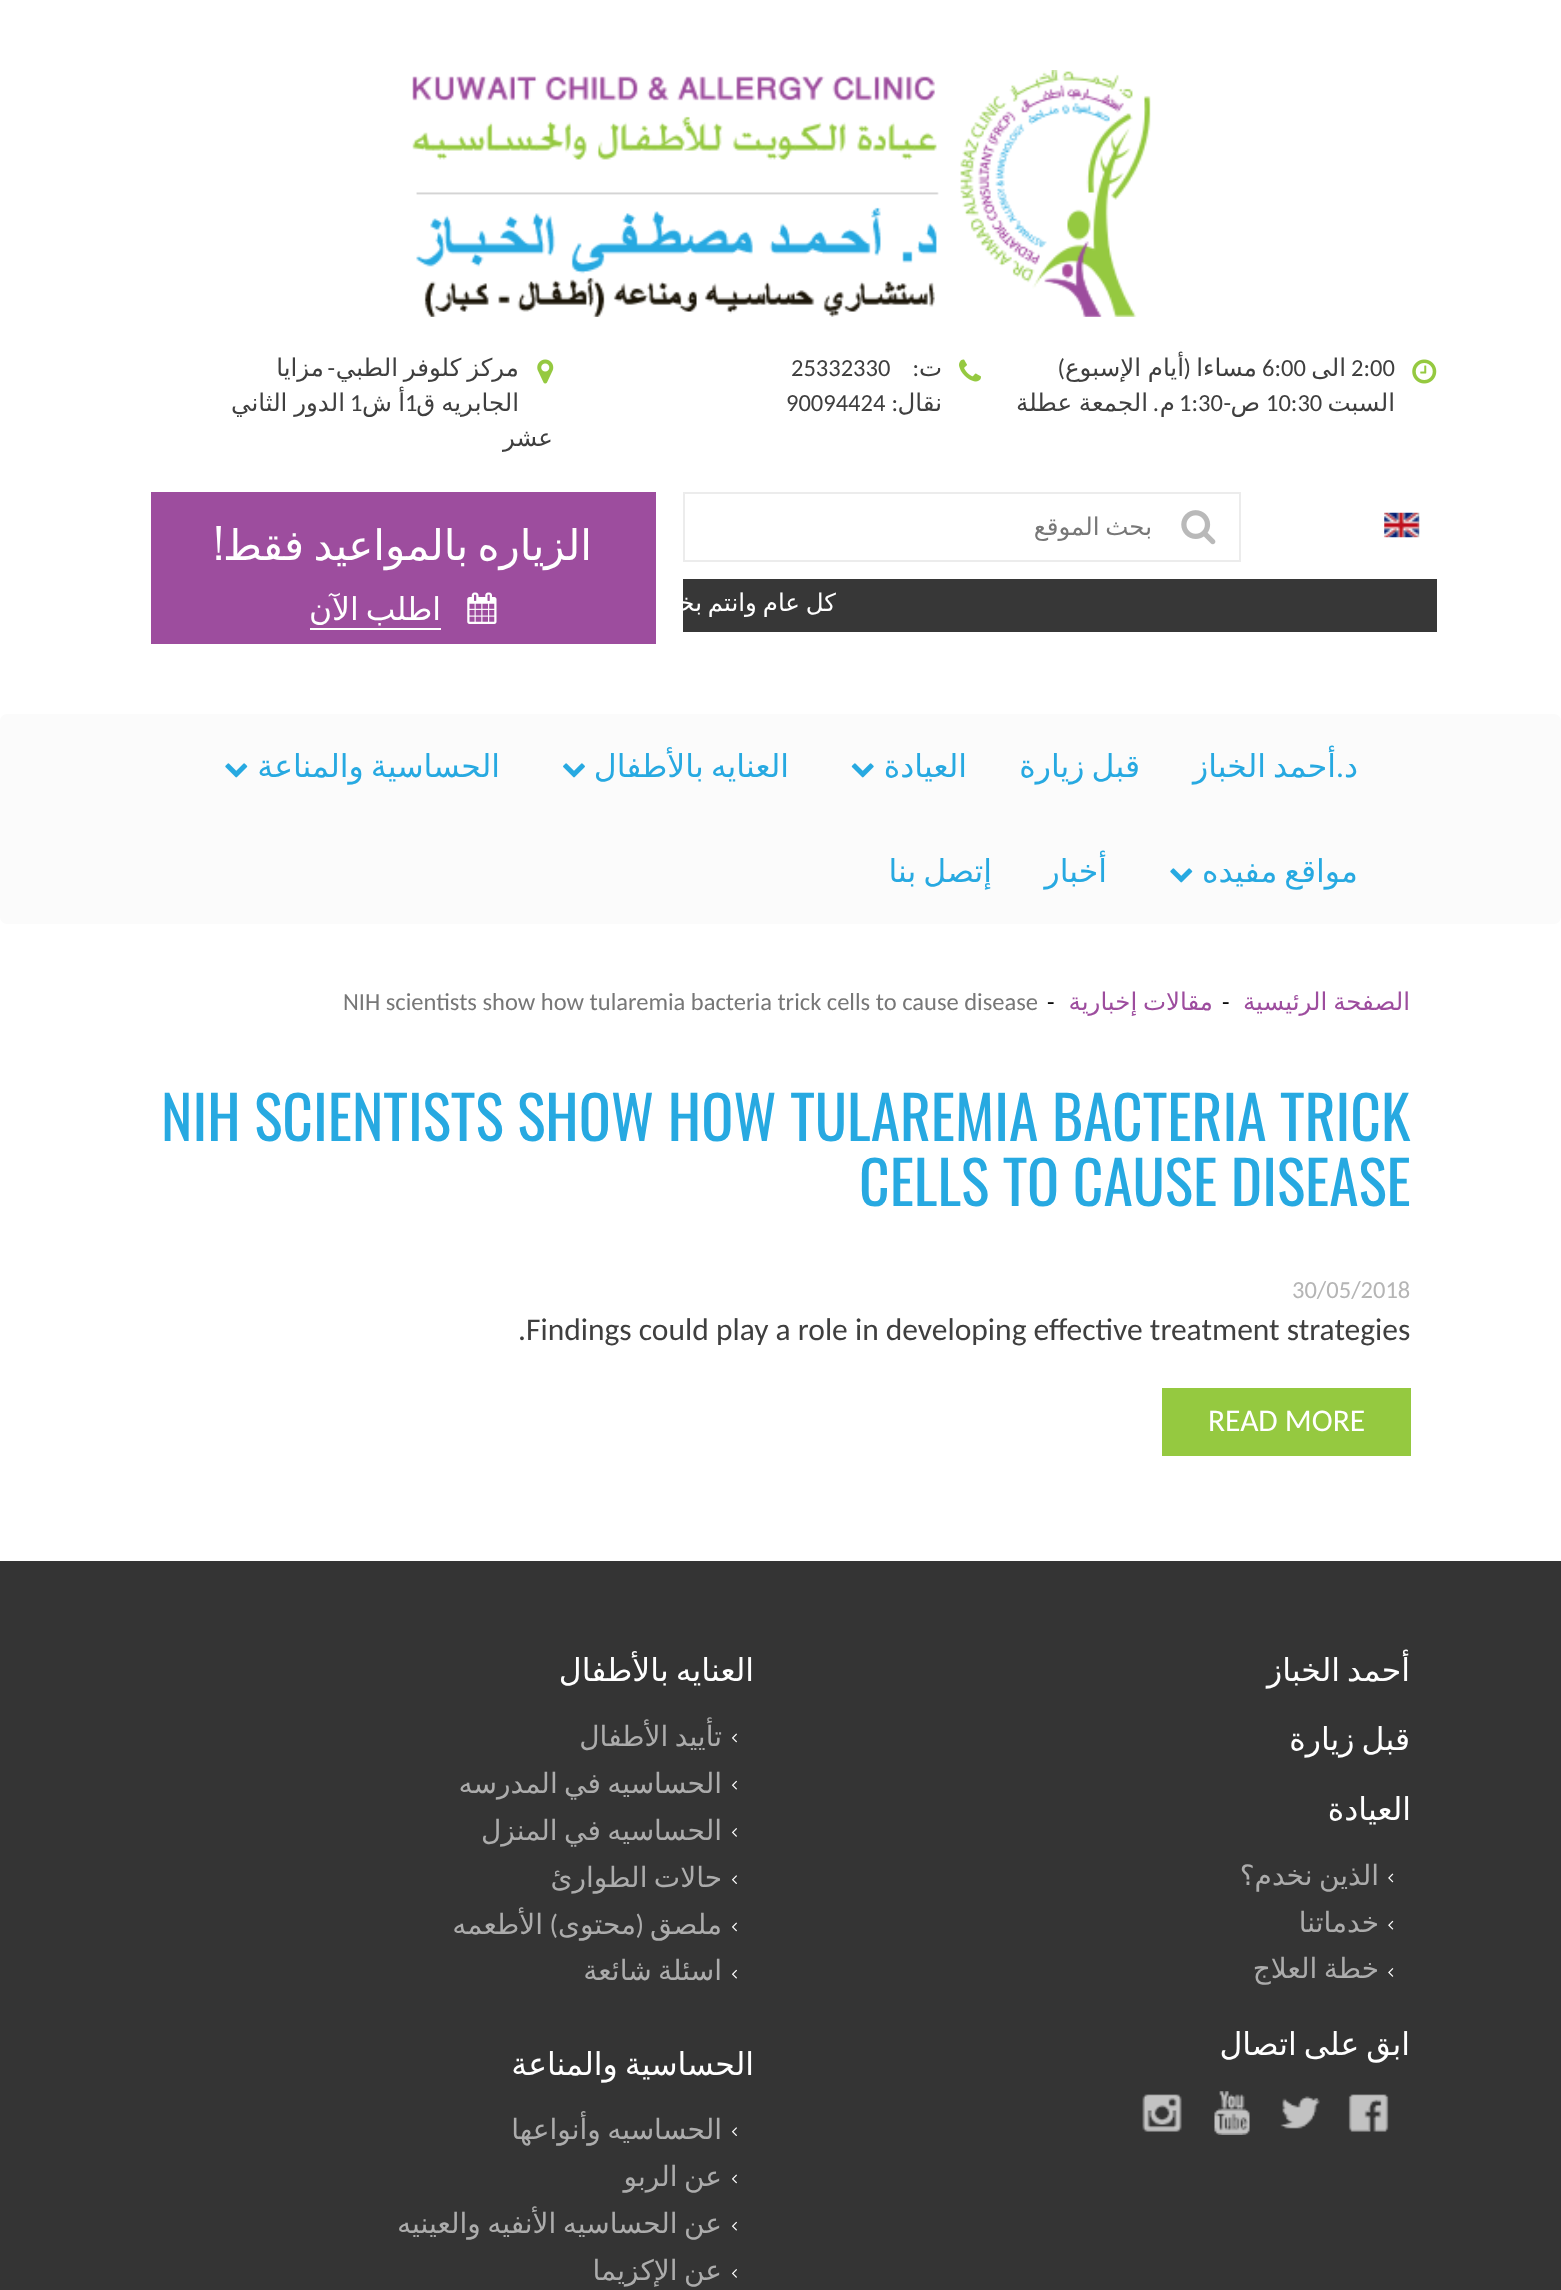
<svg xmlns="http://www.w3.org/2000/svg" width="1561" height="2290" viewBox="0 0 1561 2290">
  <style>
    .t1 { font: 24.5px Carlito; fill: #3f3f3f; }
    .t2 { font: 24.5px DejaVu Sans; direction: rtl; fill: #3f3f3f; }
    .t3 { font: 24.5px Carlito; direction: rtl; fill: #3f3f3f; }
    .t4 { font: 24.5px DejaVu Sans; direction: rtl; fill: #777; }
    .t5 { font: 24.5px DejaVu Sans; direction: rtl; fill: #fff; }
    .t6 { font: 42px DejaVu Sans; direction: rtl; fill: #fff; }
    .t7 { font: 42px Oswald; direction: rtl; fill: #fff; }
    .t8 { font: 31.5px DejaVu Sans; direction: rtl; fill: #fff; }
    .t9 { font: 31.5px DejaVu Sans; direction: rtl; fill: #27a9e1; }
    .t10 { font: 31.5px Carlito; direction: rtl; fill: #27a9e1; }
    .t11 { font: 24.5px DejaVu Sans; direction: rtl; fill: #9d4d9e; }
    .t12 { font: 24.5px Carlito; fill: #000; }
    .t13 { font: 24.5px Carlito; fill: #777; }
    .t14 { font: 59.5px Oswald; fill: #27a9e1; }
    .t15 { font: 24.5px Carlito; fill: #b5b5b5; }
    .t16 { font: 31.5px Carlito; fill: #3f3f3f; }
    .t17 { font: 31.5px Carlito; fill: #fff; }
    .t18 { font: 28px DejaVu Sans; direction: rtl; fill: #acacac; }
    .t19 { font: 28px Carlito; direction: rtl; fill: #acacac; }
  </style>
  <defs>
    <clipPath id="clip1"><rect x="702" y="513" width="450" height="30"/></clipPath>
    <clipPath id="clip2"><rect x="683" y="579" width="754" height="42"/></clipPath>
  </defs>
  <rect width="100%" height="100%" fill="#fff"/>
  <image x="412" y="70" width="739" height="247" href="images/1.png"/>
  <image x="1412" y="359" width="25" height="25" href="images/2.png"/>
  <text x="1351" y="376" class="t1">2:00</text>
  <text x="1346" y="376" class="t2">الى</text>
  <text x="1262" y="376" class="t1">6:00</text>
  <text x="1257" y="376" class="t2">مساءا</text>
  <text x="1191" y="376" class="t3">(</text>
  <text x="1184" y="376" word-spacing="-1" class="t2">أيام الإسبوع</text>
  <text x="1065" y="376" class="t3">)</text>
  <text x="1395" y="411" class="t2">السبت</text>
  <text x="1266" y="411" class="t1">10:30</text>
  <text x="1260" y="411" class="t2">ص</text>
  <text x="1231" y="411" class="t3">-</text>
  <text x="1179" y="411" class="t1">1:30</text>
  <text x="1175" y="411" class="t2">م</text>
  <text x="1148" y="411" word-spacing="-1" class="t2">الجمعة عطلة</text>
  <text x="1159" y="411" class="t3">.</text>
  <image x="959" y="359" width="22" height="23" href="images/3.png"/>
  <text x="942" y="376" class="t2">ت</text>
  <text x="919" y="376" class="t3">:</text>
  <text x="791" y="376" class="t1">25332330</text>
  <text x="942" y="411" class="t2">نقال</text>
  <text x="898" y="411" class="t3">:</text>
  <text x="786" y="411" class="t1">90094424</text>
  <image x="537" y="359" width="17" height="25" href="images/4.png"/>
  <text x="519" y="376" word-spacing="-2" class="t2">مركز كلوفر الطبي</text>
  <text x="335" y="376" class="t3">-</text>
  <text x="324" y="376" class="t2">مزايا</text>
  <text x="519" y="411" word-spacing="-2" class="t2">الجابريه ق</text>
  <text x="405" y="411" class="t1">1</text>
  <text x="405" y="411" class="t2">أ</text>
  <text x="392" y="411" class="t2">ش</text>
  <text x="350" y="411" class="t1">1</text>
  <text x="345" y="411" word-spacing="-1" class="t2">الدور الثاني</text>
  <text x="553" y="446" class="t2">عشر</text>
  <image x="1384" y="512" width="36" height="26" href="images/5.png"/>
  <rect x="684" y="493" width="556" height="68" fill="none" stroke="#ececec" stroke-width="2"/>
  <image x="1181" y="510" width="35" height="35" href="images/6.png"/>
  <g clip-path="url(#clip1)">
    <text x="1152" y="535" word-spacing="-2" class="t4">بحث الموقع</text>
  </g>
  <rect x="683" y="579" width="754" height="53" fill="#373737"/>
  <g clip-path="url(#clip2)">
    <text x="836" y="611" word-spacing="-2" class="t5">كل عام وانتم بخير</text>
  </g>
  <rect x="151" y="492" width="505" height="152" fill="#9d4d9e"/>
  <text x="592" y="560" word-spacing="-4" class="t6">الزياره بالمواعيد فقط</text>
  <text x="223" y="560" class="t7">!</text>
  <image x="467" y="592" width="30" height="32" href="images/7.png"/>
  <text x="441" y="620" word-spacing="-3" class="t8">اطلب الآن</text>
  <rect x="310" y="628" width="131" height="2" fill="#fff"/>
  <rect x="0" y="714" width="1561" height="210" rx="7" fill="#fbfbfb"/>
  <text x="1358" y="777" class="t9">د</text>
  <text x="1344" y="777" class="t10">.</text>
  <text x="1336" y="777" word-spacing="-3" class="t9">أحمد الخباز</text>
  <text x="1140" y="777" word-spacing="-3" class="t9">قبل زيارة</text>
  <text x="967" y="777" class="t9">العيادة</text>
  <image x="851" y="763" width="23" height="15" href="images/8.png"/>
  <text x="789" y="777" word-spacing="-3" class="t9">العنايه بالأطفال</text>
  <image x="563" y="763" width="22" height="15" href="images/9.png"/>
  <text x="500" y="777" word-spacing="-3" class="t9">الحساسية والمناعة</text>
  <image x="225" y="763" width="23" height="15" href="images/10.png"/>
  <text x="1358" y="882" word-spacing="-3" class="t9">مواقع مفيده</text>
  <image x="1170" y="868" width="23" height="15" href="images/10.png"/>
  <text x="1107" y="882" class="t9">أخبار</text>
  <text x="992" y="882" word-spacing="-3" class="t9">إتصل بنا</text>
  <text x="1410" y="1010" word-spacing="-2" class="t11">الصفحة الرئيسية</text>
  <text x="1222" y="1010" class="t12">-</text>
  <text x="1213" y="1010" word-spacing="-2" class="t11">مقالات إخبارية</text>
  <text x="1047" y="1010" class="t12">-</text>
  <text x="343" y="1010" class="t13">NIH scientists show how tularemia bacteria trick cells to cause disease</text>
  <text x="161" y="1141" class="t14">NIH SCIENTISTS SHOW HOW TULAREMIA BACTERIA TRICK</text>
  <text x="859" y="1206" class="t14">CELLS TO CAUSE DISEASE</text>
  <text x="1292" y="1298" class="t15">30/05/2018</text>
  <text x="518" y="1340" class="t16">.Findings could play a role in developing effective treatment strategies</text>
  <rect x="1162" y="1388" width="249" height="68" fill="#95c940"/>
  <text x="1208" y="1431" class="t17">READ MORE</text>
  <rect x="0" y="1561" width="1561" height="729" fill="#343434"/>
  <text x="1410" y="1681" word-spacing="-3" class="t8">أحمد الخباز</text>
  <text x="1410" y="1750" word-spacing="-3" class="t8">قبل زيارة</text>
  <text x="1411" y="1820" class="t8">العيادة</text>
  <image x="1388" y="1873" width="6" height="10" href="images/11.png"/>
  <text x="1379" y="1885" word-spacing="-2.5" class="t18">الذين نخدم؟</text>
  <image x="1388" y="1920" width="6" height="10" href="images/12.png"/>
  <text x="1379" y="1932" class="t18">خدماتنا</text>
  <image x="1388" y="1968" width="6" height="9" href="images/13.png"/>
  <text x="1379" y="1978" word-spacing="-2.5" class="t18">خطة العلاج</text>
  <text x="1410" y="2055" word-spacing="-3" class="t8">ابق على اتصال</text>
  <image x="1348" y="2094" width="41" height="38" href="images/14.png"/>
  <image x="1280" y="2096" width="40" height="33" href="images/15.png"/>
  <image x="1214" y="2091" width="36" height="44" href="images/16.png"/>
  <image x="1142" y="2094" width="40" height="38" href="images/17.png"/>
  <text x="754" y="1681" word-spacing="-3" class="t8">العنايه بالأطفال</text>
  <image x="732" y="1733" width="5" height="10" href="images/18.png"/>
  <text x="722" y="1746" word-spacing="-2.5" class="t18">تأييد الأطفال</text>
  <image x="731" y="1780" width="6" height="10" href="images/19.png"/>
  <text x="722" y="1793" word-spacing="-2.5" class="t18">الحساسيه في المدرسه</text>
  <image x="731" y="1828" width="6" height="9" href="images/20.png"/>
  <text x="722" y="1840" word-spacing="-2.5" class="t18">الحساسيه في المنزل</text>
  <image x="731" y="1875" width="6" height="9" href="images/21.png"/>
  <text x="722" y="1887" word-spacing="-2.5" class="t18">حالات الطوارئ</text>
  <image x="732" y="1922" width="5" height="10" href="images/18.png"/>
  <text x="722" y="1934" class="t18">ملصق</text>
  <text x="644" y="1934" class="t19">(</text>
  <text x="636" y="1934" class="t18">محتوى</text>
  <text x="558" y="1934" class="t19">)</text>
  <text x="543" y="1934" class="t18">الأطعمه</text>
  <image x="731" y="1969" width="6" height="10" href="images/19.png"/>
  <text x="722" y="1980" word-spacing="-2.5" class="t18">اسئلة شائعة</text>
  <text x="754" y="2075" word-spacing="-3" class="t8">الحساسية والمناعة</text>
  <image x="731" y="2127" width="6" height="9" href="images/21.png"/>
  <text x="722" y="2139" word-spacing="-2.5" class="t18">الحساسيه وأنواعها</text>
  <image x="732" y="2174" width="5" height="10" href="images/18.png"/>
  <text x="722" y="2186" word-spacing="-2.5" class="t18">عن الربو</text>
  <image x="731" y="2221" width="6" height="10" href="images/19.png"/>
  <text x="722" y="2233" word-spacing="-2.5" class="t18">عن الحساسيه الأنفيه والعينيه</text>
  <image x="731" y="2269" width="6" height="9" href="images/20.png"/>
  <text x="722" y="2280" word-spacing="-2.5" class="t18">عن الإكزيما</text>
</svg>
